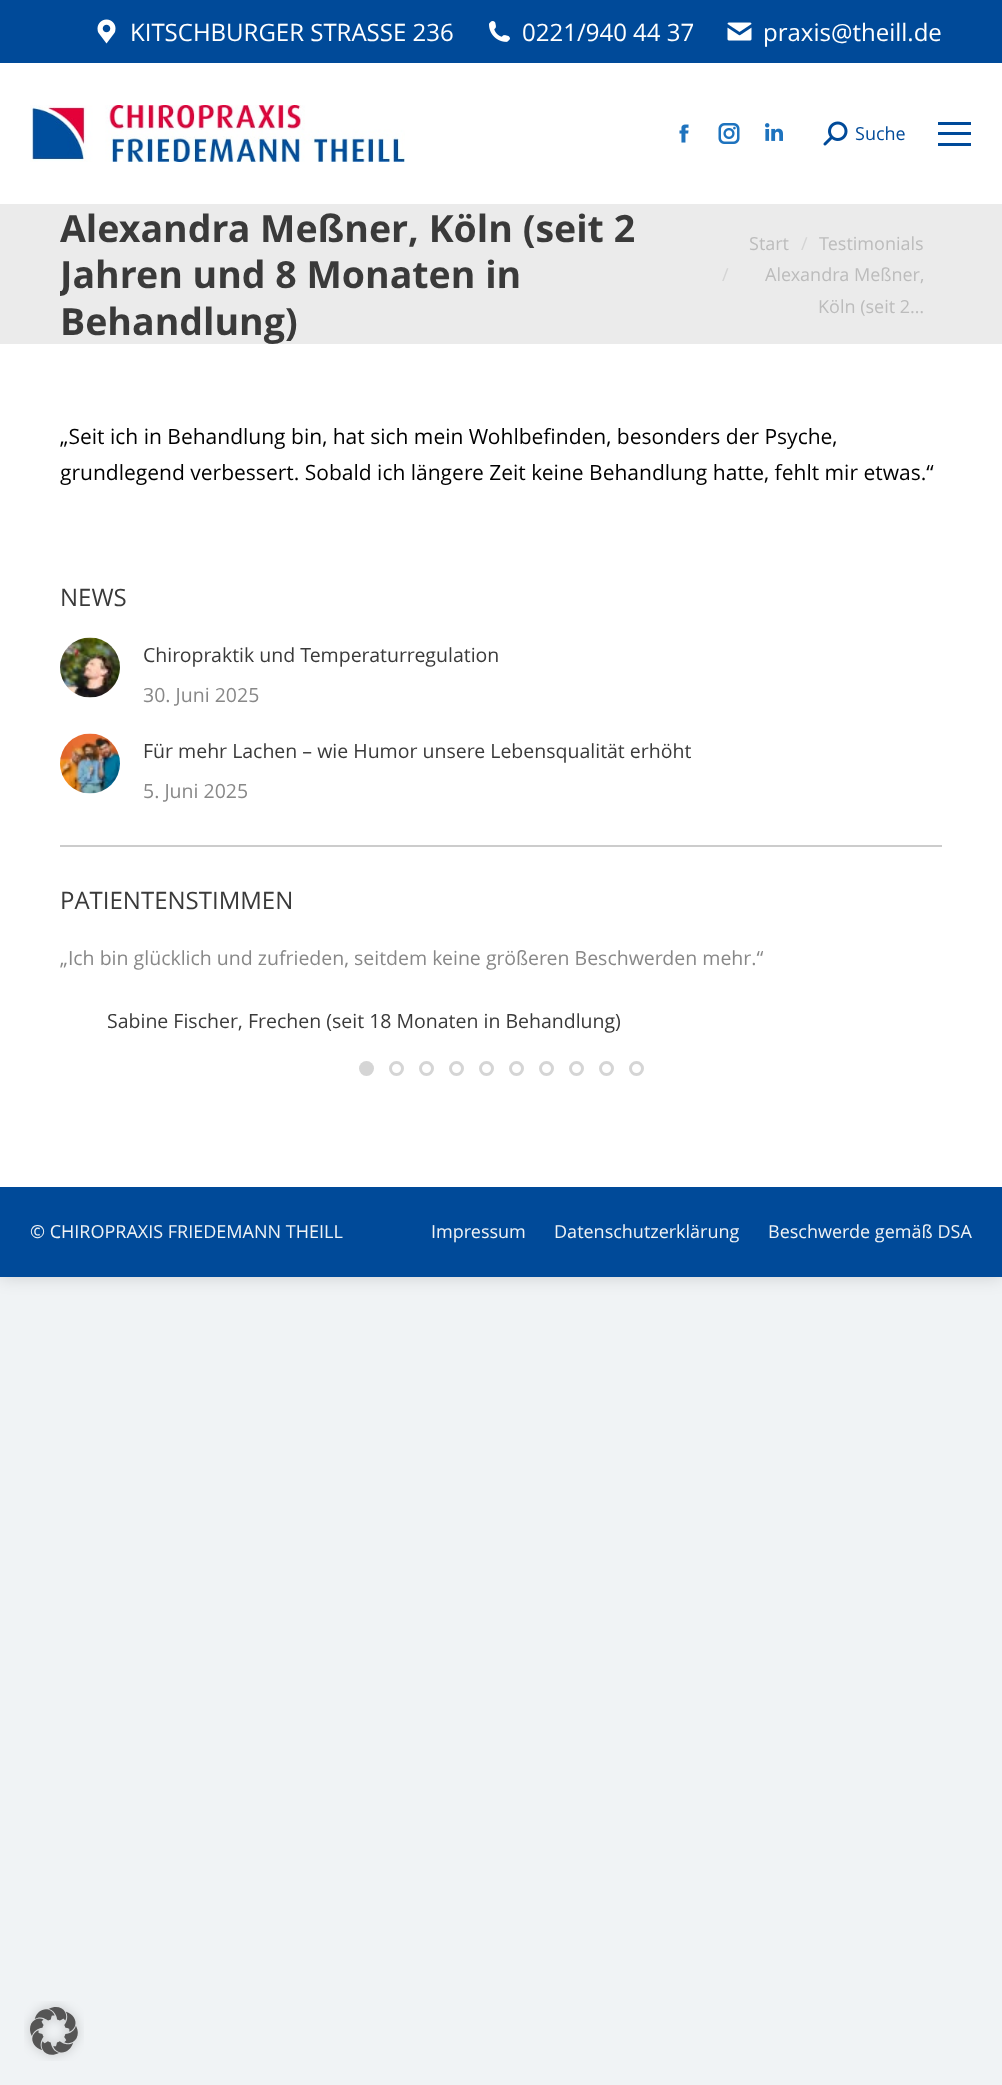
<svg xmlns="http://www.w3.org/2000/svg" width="1002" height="2085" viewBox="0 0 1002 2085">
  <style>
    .t1 { font: 24px 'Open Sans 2'; fill: #fff; }
    .t2 { font: 18px Open Sans; fill: #004a99; }
    .t3 { font: bold 37.5px Open Sans; fill: #3a3a3a; }
    .t4 { font: 18px Open Sans; fill: #bcbcbc; }
    .t5 { font: 18px Open Sans; fill: #d4d4d4; }
    .t6 { font: 21px Open Sans; fill: #000; }
    .t7 { font: 24px 'Open Sans 2'; fill: #3a3a3a; }
    .t8 { font: 19.5px Open Sans; fill: #3a3a3a; }
    .t9 { font: 19.5px Open Sans; fill: #888; }
    .t10 { font: 19.5px 'Open Sans 2'; fill: #3a3a3a; }
    .t11 { font: 18px Open Sans; fill: #f0f3f5; }
  </style>
  <defs>
    <clipPath id="clip1"><rect x="60" y="204" width="633" height="140"/></clipPath>
  </defs>
  <rect width="100%" height="100%" fill="#f0f3f5"/>
  <rect x="0" y="0" width="1002" height="1277" fill="#00000026" filter="blur(9px)"/>
  <rect x="0" y="63" width="1002" height="1124" fill="#fff"/>
  <rect x="0" y="0" width="1002" height="63" fill="#004a99"/>
  <image x="97" y="19" width="19" height="25" href="images/1.png"/>
  <text x="130" y="41" class="t1">KITSCHBURGER STRASSE 236</text>
  <image x="489" y="21" width="21" height="21" href="images/2.png"/>
  <text x="522" y="41" class="t1">0221/940 44 37</text>
  <image x="727" y="22" width="25" height="19" href="images/3.png"/>
  <text x="763" y="41" class="t1">praxis@theill.de</text>
  <image x="30" y="105" width="375" height="57" href="images/4.png"/>
  <image x="679" y="124" width="10" height="19" href="images/5.png"/>
  <image x="718" y="123" width="22" height="21" href="images/6.png"/>
  <image x="765" y="123" width="18" height="18" href="images/7.png"/>
  <image x="823" y="121" width="25" height="25" href="images/8.png"/>
  <text x="855" y="140" class="t2">Suche</text>
  <rect x="938" y="122" width="33" height="3" fill="#004a99"/>
  <rect x="938" y="132" width="33" height="3" fill="#004a99"/>
  <rect x="938" y="143" width="33" height="3" fill="#004a99"/>
  <rect x="0" y="204" width="1002" height="140" fill="#ebebeb"/>
  <text x="60" y="242" class="t3">Alexandra Meßner, Köln (seit 2</text>
  <g clip-path="url(#clip1)">
    <text x="60" y="288" class="t3">Jahren und 8 Monaten in</text>
  </g>
  <text x="60" y="335" class="t3">Behandlung)</text>
  <text x="749" y="250" class="t4">Start</text>
  <text x="801" y="250" class="t5">/</text>
  <text x="819" y="250" class="t4">Testimonials</text>
  <text x="722" y="281" class="t5">/</text>
  <text x="765" y="281" class="t4">Alexandra Meßner,</text>
  <text x="818" y="313" class="t4">Köln (seit 2…</text>
  <text x="60" y="444" class="t6">„Seit ich in Behandlung bin, hat sich mein Wohlbefinden, besonders der Psyche,</text>
  <text x="60" y="480" class="t6">grundlegend verbessert. Sobald ich längere Zeit keine Behandlung hatte, fehlt mir etwas.“</text>
  <text x="60" y="606" class="t7">NEWS</text>
  <image x="60" y="637" width="60" height="61" href="images/9.png"/>
  <text x="143" y="662" class="t8">Chiropraktik und Temperaturregulation</text>
  <text x="143" y="702" class="t9">30. Juni 2025</text>
  <image x="60" y="733" width="60" height="61" href="images/10.png"/>
  <text x="143" y="758" class="t8">Für mehr Lachen – wie Humor unsere Lebensqualität erhöht</text>
  <text x="143" y="798" class="t9">5. Juni 2025</text>
  <rect x="60" y="845" width="882" height="2" fill="#ccc"/>
  <text x="60" y="909" class="t7">PATIENTENSTIMMEN</text>
  <text x="60" y="965" class="t9">„Ich bin glücklich und zufrieden, seitdem keine größeren Beschwerden mehr.“</text>
  <text x="107" y="1028" class="t10">Sabine Fischer, Frechen (seit 18 Monaten in Behandlung)</text>
  <circle cx="366.5" cy="1068.5" r="7.5" fill="#d5d5d5"/>
  <circle cx="396.5" cy="1068.5" r="6" fill="none" stroke="#d5d5d5" stroke-width="3"/>
  <circle cx="426.5" cy="1068.5" r="6" fill="none" stroke="#d5d5d5" stroke-width="3"/>
  <circle cx="456.5" cy="1068.5" r="6" fill="none" stroke="#d5d5d5" stroke-width="3"/>
  <circle cx="486.5" cy="1068.5" r="6" fill="none" stroke="#d5d5d5" stroke-width="3"/>
  <circle cx="516.5" cy="1068.5" r="6" fill="none" stroke="#d5d5d5" stroke-width="3"/>
  <circle cx="546.5" cy="1068.5" r="6" fill="none" stroke="#d5d5d5" stroke-width="3"/>
  <circle cx="576.5" cy="1068.5" r="6" fill="none" stroke="#d5d5d5" stroke-width="3"/>
  <circle cx="606.5" cy="1068.5" r="6" fill="none" stroke="#d5d5d5" stroke-width="3"/>
  <circle cx="636.5" cy="1068.5" r="6" fill="none" stroke="#d5d5d5" stroke-width="3"/>
  <rect x="0" y="1187" width="1002" height="90" fill="#004a99"/>
  <text x="30" y="1238" class="t11">© CHIROPRAXIS FRIEDEMANN THEILL</text>
  <text x="431" y="1238" class="t11">Impressum</text>
  <text x="554" y="1238" class="t11">Datenschutzerklärung</text>
  <text x="768" y="1238" class="t11">Beschwerde gemäß DSA</text>
  <image x="24" y="2001" width="60" height="60" href="images/11.png"/>
</svg>
